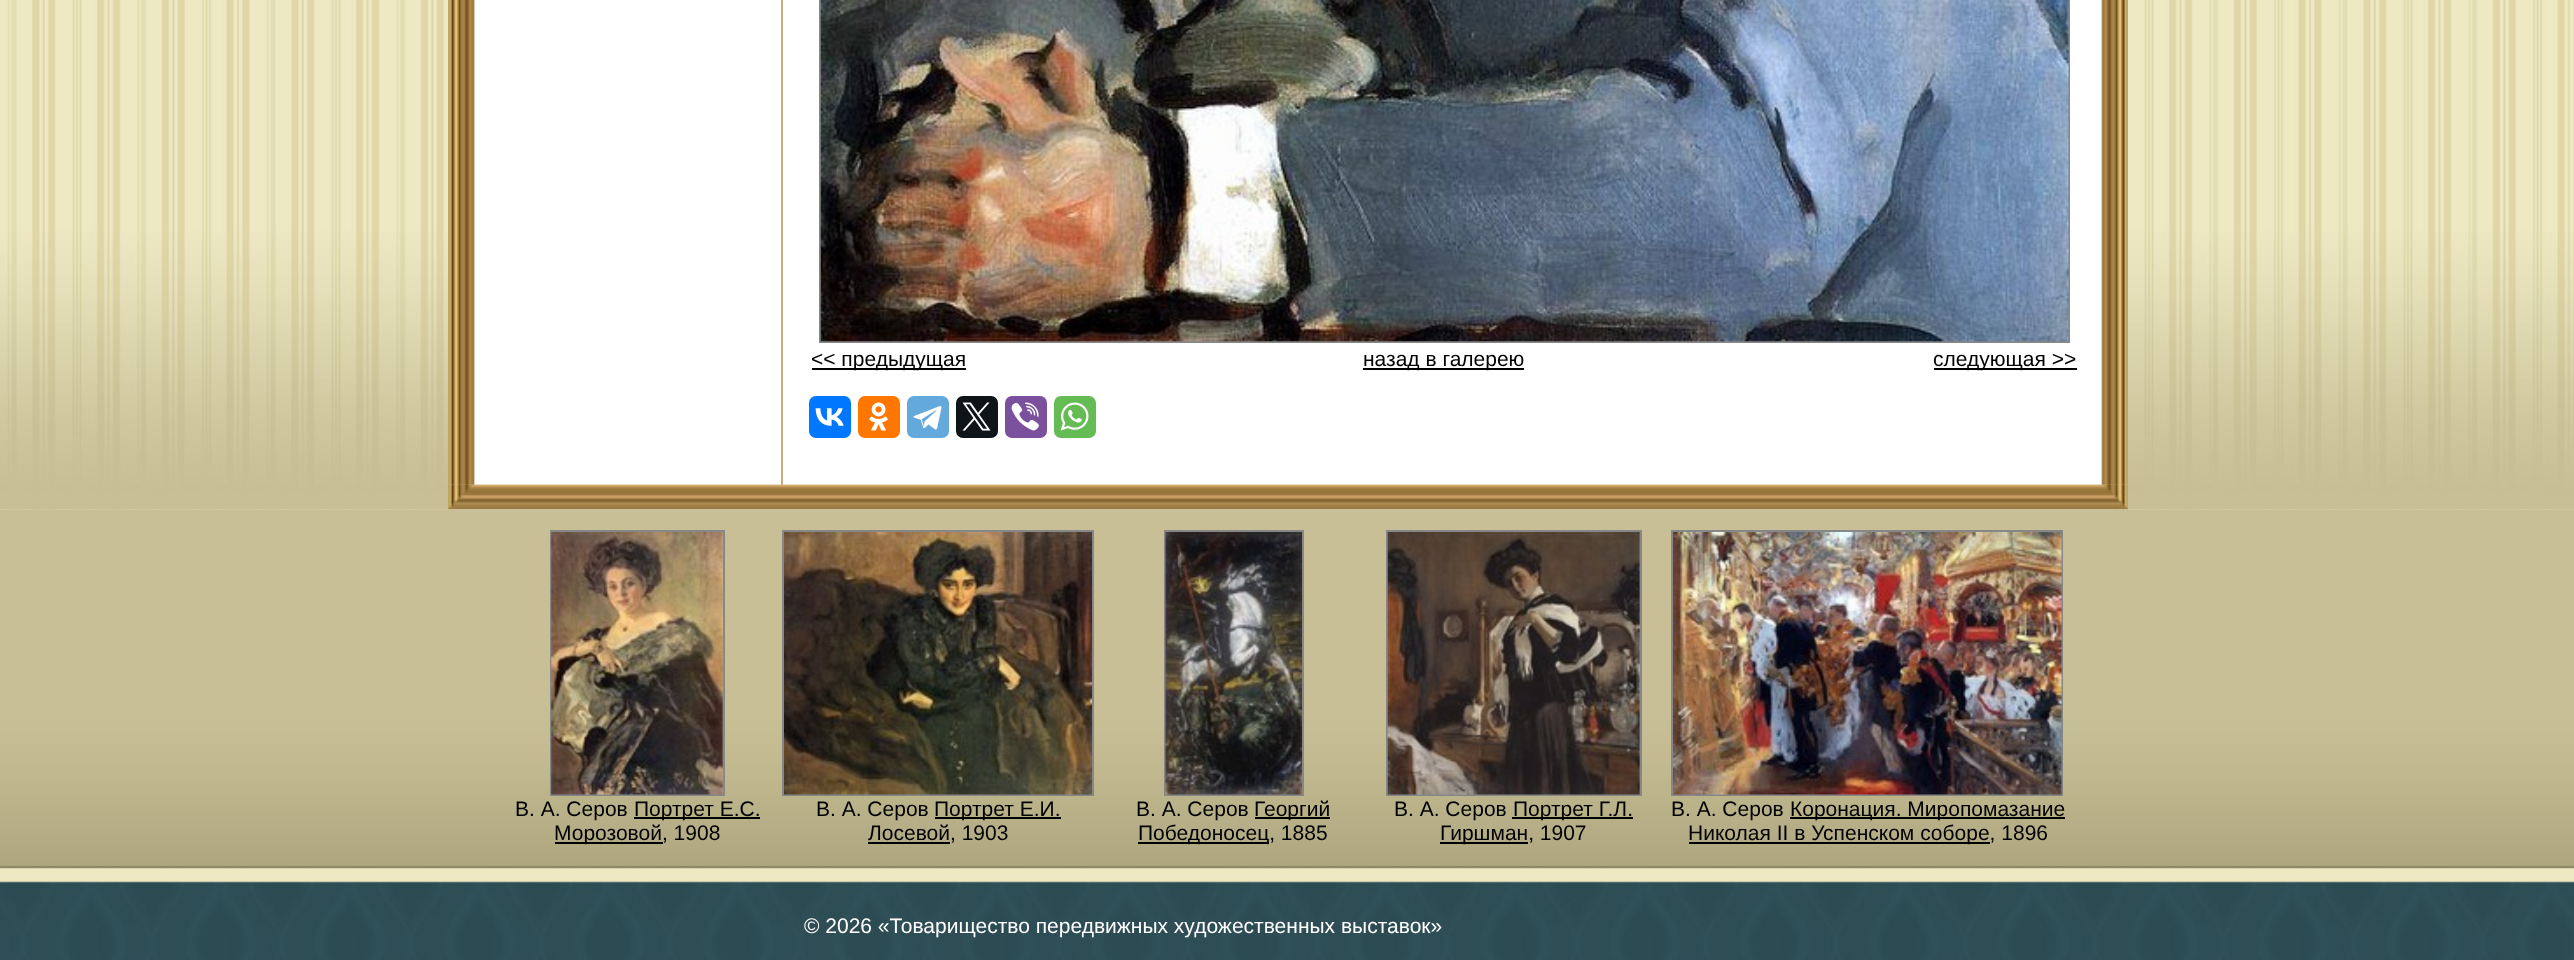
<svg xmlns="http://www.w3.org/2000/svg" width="2574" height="960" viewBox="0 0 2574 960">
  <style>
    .t1 { font: 21px Liberation Sans; fill: #000; }
    .t2 { font: 21px Liberation Sans; fill: #fff; }
  </style>
  <rect width="100%" height="100%" fill="#fff"/>
  <image x="0" y="0" width="2574" height="867" href="images/1.png"/>
  <image x="0" y="231" width="2574" height="279" href="images/2.png"/>
  <image x="448" y="0" width="1680" height="485" href="images/4.png"/>
  <rect x="781" y="0" width="2" height="487" fill="#c6ad7a"/>
  <image x="448" y="484" width="1680" height="26" href="images/3.png"/>
  <rect x="820" y="-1" width="1249" height="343" fill="none" stroke="#878787" stroke-width="2"/>
  <image x="820" y="0" width="1249" height="342" href="images/5.png"/>
  <rect x="812" y="368" width="154" height="2" fill="#000"/>
  <text x="811" y="366" class="t1">&lt;&lt; предыдущая</text>
  <rect x="1363" y="368" width="161" height="2" fill="#000"/>
  <text x="1363" y="366" class="t1">назад в галерею</text>
  <rect x="1934" y="368" width="143" height="2" fill="#000"/>
  <text x="1933" y="366" class="t1">следующая &gt;&gt;</text>
  <rect x="809" y="396" width="42" height="42" rx="7" fill="#07f"/>
  <image x="815" y="408" width="29" height="18" href="images/6.png"/>
  <rect x="858" y="396" width="42" height="42" rx="7" fill="#f70"/>
  <image x="869" y="402" width="19" height="29" href="images/7.png"/>
  <rect x="907" y="396" width="42" height="42" rx="7" fill="#64a9dc"/>
  <image x="913" y="406" width="29" height="24" href="images/8.png"/>
  <rect x="956" y="396" width="42" height="42" rx="7" fill="#0f1419"/>
  <image x="962" y="402" width="29" height="29" href="images/9.png"/>
  <rect x="1005" y="396" width="42" height="42" rx="7" fill="#7b519d"/>
  <image x="1011" y="402" width="28" height="29" href="images/10.png"/>
  <rect x="1054" y="396" width="42" height="42" rx="7" fill="#65bc54"/>
  <image x="1060" y="402" width="29" height="29" href="images/11.png"/>
  <image x="0" y="509" width="2574" height="358" href="images/12.png"/>
  <rect x="551" y="531" width="173" height="264" fill="none" stroke="#878787" stroke-width="2"/>
  <image x="551" y="532" width="172" height="263" href="images/13.png"/>
  <text x="515" y="816" class="t1">В. А. Серов</text>
  <rect x="634" y="817" width="126" height="2" fill="#000"/>
  <text x="634" y="816" class="t1">Портрет Е.С.</text>
  <rect x="555" y="842" width="108" height="2" fill="#000"/>
  <text x="554" y="840" class="t1">Морозовой, 1908</text>
  <rect x="783" y="531" width="310" height="264" fill="none" stroke="#878787" stroke-width="2"/>
  <image x="784" y="532" width="308" height="263" href="images/14.png"/>
  <text x="816" y="816" class="t1">В. А. Серов</text>
  <rect x="935" y="817" width="126" height="2" fill="#000"/>
  <text x="934" y="816" class="t1">Портрет Е.И.</text>
  <rect x="868" y="842" width="82" height="2" fill="#000"/>
  <text x="868" y="840" class="t1">Лосевой, 1903</text>
  <rect x="1165" y="531" width="138" height="264" fill="none" stroke="#878787" stroke-width="2"/>
  <image x="1165" y="532" width="137" height="263" href="images/15.png"/>
  <text x="1136" y="816" class="t1">В. А. Серов</text>
  <rect x="1255" y="817" width="75" height="2" fill="#000"/>
  <text x="1254" y="816" class="t1">Георгий</text>
  <rect x="1138" y="842" width="131" height="2" fill="#000"/>
  <text x="1138" y="840" class="t1">Победоносец, 1885</text>
  <rect x="1387" y="531" width="254" height="264" fill="none" stroke="#878787" stroke-width="2"/>
  <image x="1387" y="532" width="253" height="263" href="images/16.png"/>
  <text x="1394" y="816" class="t1">В. А. Серов</text>
  <rect x="1512" y="817" width="121" height="2" fill="#000"/>
  <text x="1513" y="816" class="t1">Портрет Г.Л.</text>
  <rect x="1440" y="842" width="88" height="2" fill="#000"/>
  <text x="1440" y="840" class="t1">Гиршман, 1907</text>
  <rect x="1672" y="531" width="390" height="264" fill="none" stroke="#878787" stroke-width="2"/>
  <image x="1673" y="532" width="389" height="263" href="images/17.png"/>
  <text x="1671" y="816" class="t1">В. А. Серов</text>
  <rect x="1790" y="817" width="275" height="2" fill="#000"/>
  <text x="1790" y="816" class="t1">Коронация. Миропомазание</text>
  <rect x="1689" y="842" width="301" height="2" fill="#000"/>
  <text x="1688" y="840" class="t1">Николая II в Успенском соборе, 1896</text>
  <image x="0" y="866" width="2574" height="94" href="images/18.png"/>
  <text x="804" y="933" class="t2">© 2026 «Товарищество передвижных художественных выставок»</text>
</svg>
